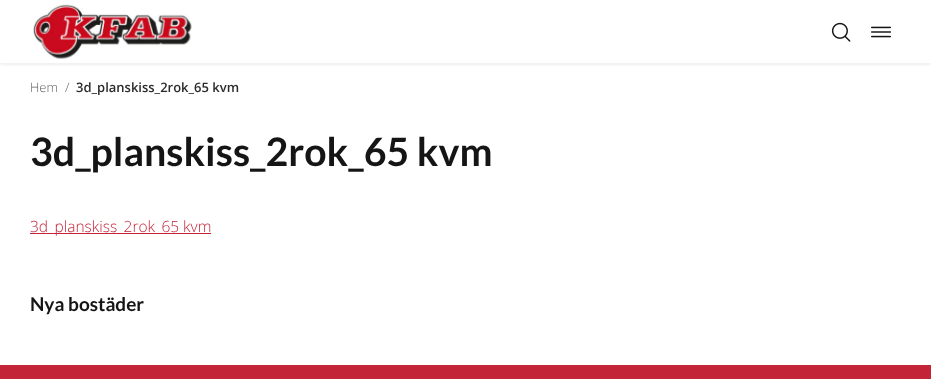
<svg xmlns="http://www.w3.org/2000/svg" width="931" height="379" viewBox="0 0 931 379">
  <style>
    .t1 { font: 300 13px Open Sans; fill: #636366; }
    .t2 { font: 600 13px Open Sans; fill: #2c2c2e; }
    .t3 { font: bold 39.25px Lato; fill: #151515; }
    .t4 { font: 300 15.5px Open Sans; fill: #c42437; }
    .t5 { font: bold 19px Lato; fill: #151515; }
  </style>
  <defs>
    <clipPath id="clip1"><rect x="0" y="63" width="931" height="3"/></clipPath>
  </defs>
  <rect width="100%" height="100%" fill="#fff"/>
  <g clip-path="url(#clip1)">
    <rect x="0" y="2" width="931" height="63" fill="#00000012" filter="blur(2px)"/>
  </g>
  <image x="33" y="4" width="1" height="55" href="images/1.png"/>
  <image x="34" y="4" width="158" height="55" href="images/2.png"/>
  <image x="831" y="22" width="20" height="20" href="images/3.png"/>
  <image x="871" y="26" width="20" height="12" href="images/4.png"/>
  <text x="30" y="92" class="t1">Hem</text>
  <text x="65" y="92" class="t1">/</text>
  <text x="76" y="92" class="t2">3d_planskiss_2rok_65 kvm</text>
  <text x="30" y="166" class="t3">3d_planskiss_2rok_65 kvm</text>
  <rect x="30" y="233" width="181" height="1" fill="#c42437"/>
  <text x="30" y="232" class="t4">3d_planskiss_2rok_65 kvm</text>
  <text x="30" y="311" class="t5">Nya bostäder</text>
  <rect x="0" y="365" width="931" height="14" fill="#c42437"/>
</svg>
